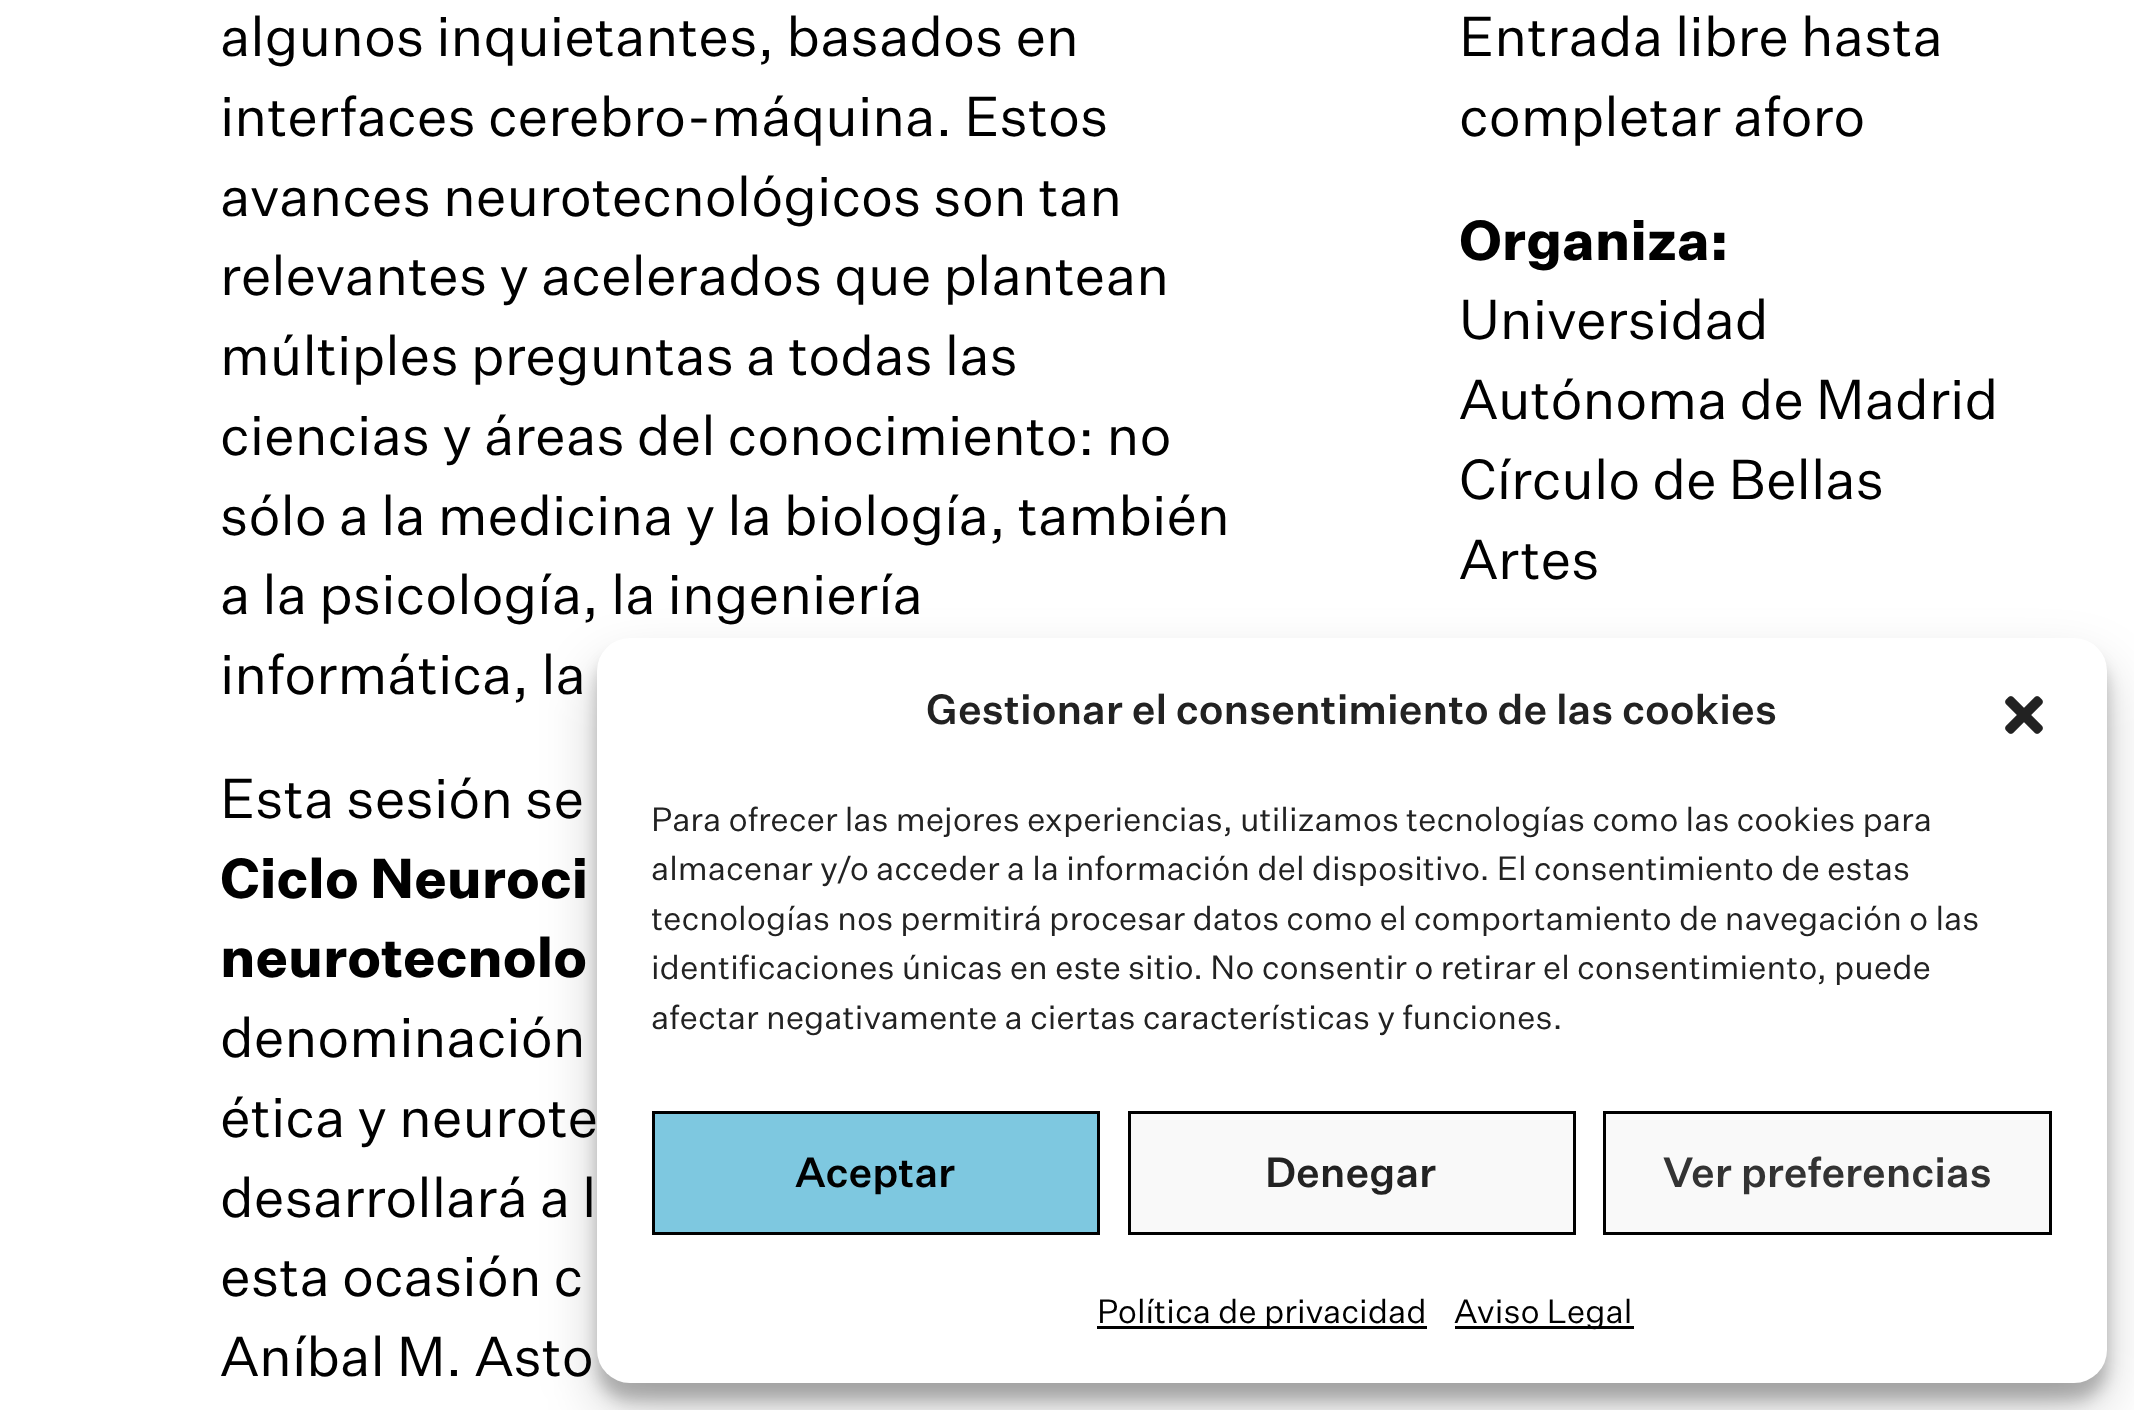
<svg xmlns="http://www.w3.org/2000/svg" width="2134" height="1410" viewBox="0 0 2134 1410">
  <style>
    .t1 { font: 55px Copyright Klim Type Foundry; fill: #000; }
    .t2 { font: bold 55px Copyright Klim Type Foundry; fill: #000; }
    .t3 { font: 500 41.25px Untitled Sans; fill: #222; }
    .t4 { font: 33px Copyright Klim Type Foundry; fill: #222; }
    .t5 { font: 500 41.25px Untitled Sans; fill: #000; }
    .t6 { font: 500 41.25px Untitled Sans; fill: #333; }
    .t7 { font: 33px Copyright Klim Type Foundry; fill: #000; }
  </style>
  <defs>
    <clipPath id="clip1"><rect x="652" y="795" width="1400" height="261"/></clipPath>
  </defs>
  <rect width="100%" height="100%" fill="#fff"/>
  <text x="220" y="56" class="t1">algunos inquietantes, basados en</text>
  <text x="220" y="136" class="t1">interfaces cerebro-máquina. Estos</text>
  <text x="220" y="216" class="t1">avances neurotecnológicos son tan</text>
  <text x="220" y="295" class="t1">relevantes y acelerados que plantean</text>
  <text x="220" y="375" class="t1">múltiples preguntas a todas las</text>
  <text x="220" y="455" class="t1">ciencias y áreas del conocimiento: no</text>
  <text x="220" y="535" class="t1">sólo a la medicina y la biología, también</text>
  <text x="220" y="614" class="t1">a la psicología, la ingeniería</text>
  <text x="220" y="694" class="t1">informática, la</text>
  <text x="220" y="818" class="t1">Esta sesión se</text>
  <text x="220" y="898" class="t2">Ciclo Neuroci</text>
  <text x="220" y="977" class="t2">neurotecnolo</text>
  <text x="220" y="1057" class="t1">denominación</text>
  <text x="220" y="1137" class="t1">ética y neurote</text>
  <text x="220" y="1217" class="t1">desarrollará a l</text>
  <text x="220" y="1296" class="t1">esta ocasión c</text>
  <text x="220" y="1376" class="t1">Aníbal M. Asto</text>
  <text x="1459" y="56" class="t1">Entrada libre hasta</text>
  <text x="1459" y="136" class="t1">completar aforo</text>
  <text x="1459" y="260" class="t2">Organiza:</text>
  <text x="1459" y="339" class="t1">Universidad</text>
  <text x="1459" y="419" class="t1">Autónoma de Madrid</text>
  <text x="1459" y="499" class="t1">Círculo de Bellas</text>
  <text x="1459" y="579" class="t1">Artes</text>
  <rect x="597" y="655" width="1510" height="745" rx="33" fill="#0000003b" filter="blur(8px)"/>
  <rect x="597" y="666" width="1510" height="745" rx="33" fill="#00000030" filter="blur(27.5px)"/>
  <rect x="597" y="638" width="1510" height="745" rx="33" fill="#fff"/>
  <text x="926" y="724" class="t3">Gestionar el consentimiento de las cookies</text>
  <image x="2005" y="696" width="38" height="38" href="images/1.png"/>
  <text x="651" y="831" class="t4">Para ofrecer las mejores experiencias, utilizamos tecnologías como las cookies para</text>
  <text x="651" y="880" class="t4">almacenar y/o acceder a la información del dispositivo. El consentimiento de estas</text>
  <g clip-path="url(#clip1)">
    <text x="651" y="930" class="t4">tecnologías nos permitirá procesar datos como el comportamiento de navegación o las</text>
  </g>
  <text x="651" y="979" class="t4">identificaciones únicas en este sitio. No consentir o retirar el consentimiento, puede</text>
  <text x="651" y="1029" class="t4">afectar negativamente a ciertas características y funciones.</text>
  <rect x="653.5" y="1112.5" width="445" height="121" fill="#7ec8e0" stroke="#000" stroke-width="3"/>
  <text x="795" y="1187" class="t5">Aceptar</text>
  <rect x="1129.5" y="1112.5" width="445" height="121" fill="#f9f9f9" stroke="#000" stroke-width="3"/>
  <text x="1265" y="1187" class="t3">Denegar</text>
  <rect x="1604.5" y="1112.5" width="446" height="121" fill="#f9f9f9" stroke="#000" stroke-width="3"/>
  <text x="1663" y="1187" class="t6">Ver preferencias</text>
  <rect x="1097" y="1326" width="330" height="3" fill="#000"/>
  <text x="1097" y="1323" class="t7">Política de privacidad</text>
  <rect x="1455" y="1326" width="179" height="3" fill="#000"/>
  <text x="1454" y="1323" class="t7">Aviso Legal</text>
</svg>
